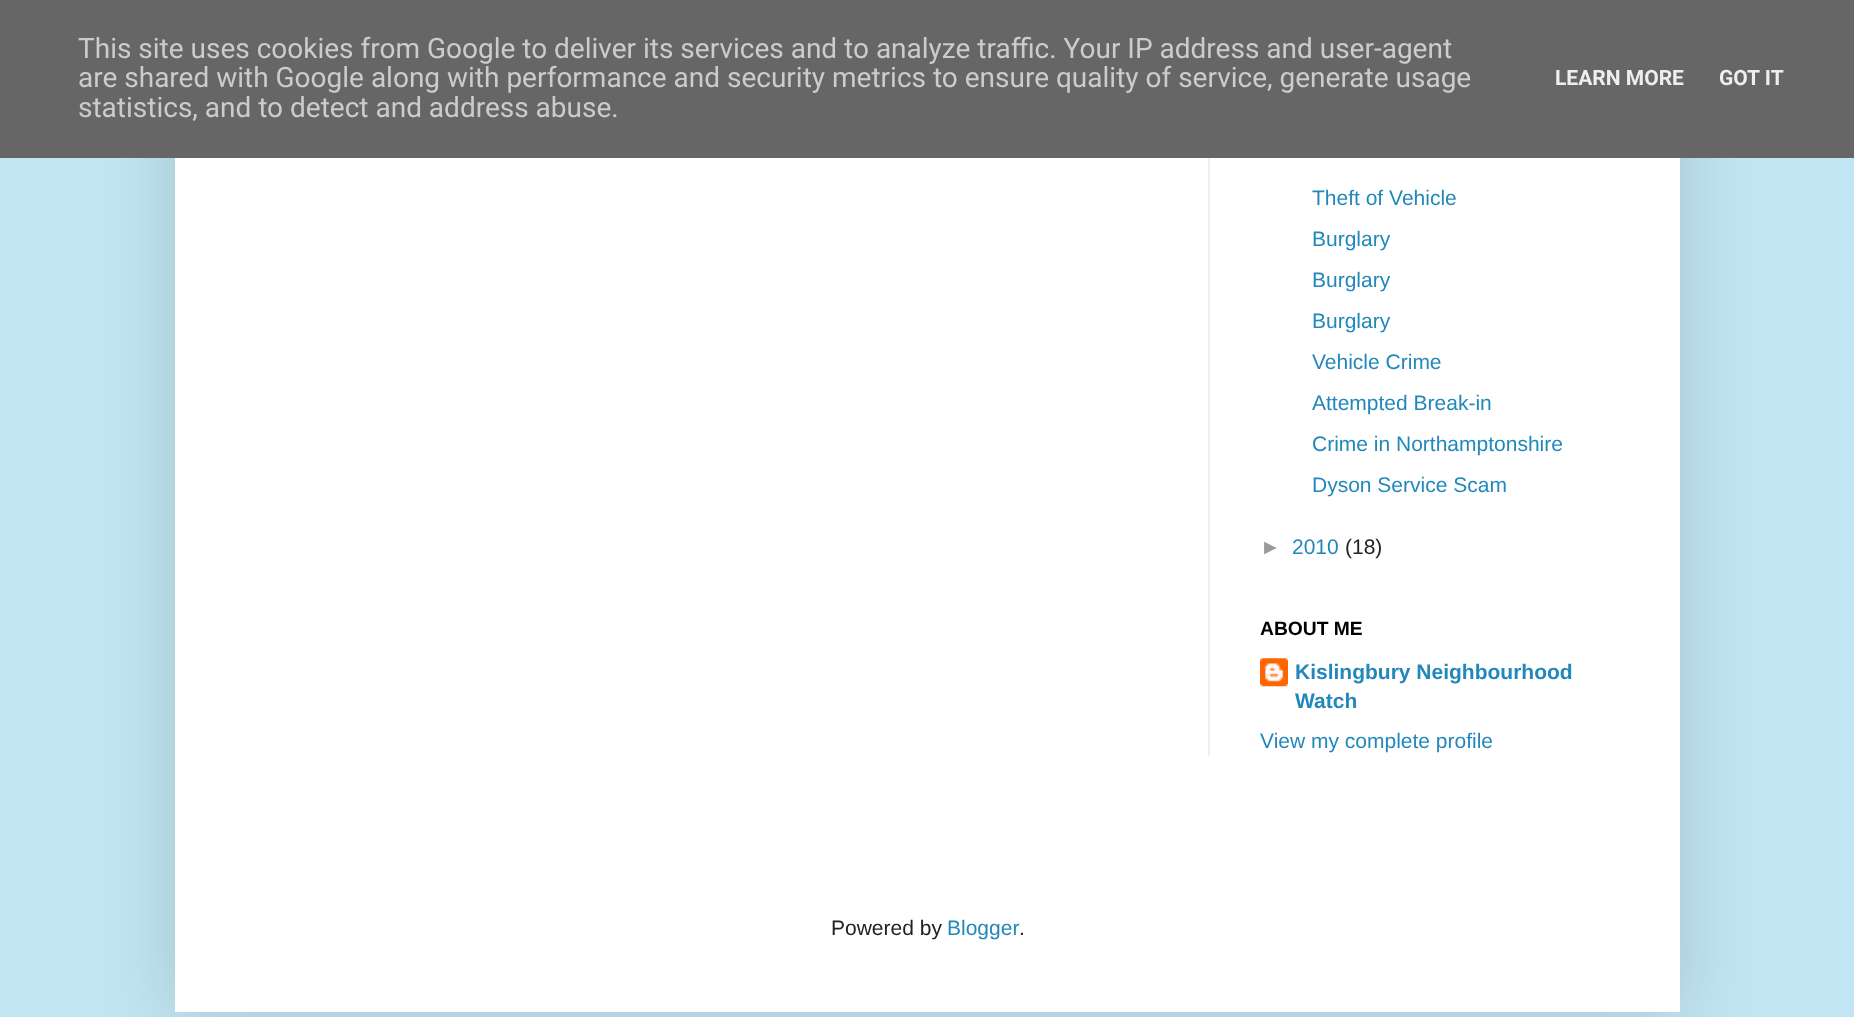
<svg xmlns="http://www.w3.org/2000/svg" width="1854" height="1017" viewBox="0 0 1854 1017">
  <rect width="100%" height="100%" fill="rgb(193,229,242)"/>
  <rect x="175" y="-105" width="1505" height="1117" fill="rgba(0,0,0,0.15)" filter="blur(35px)"/>
  <rect x="0" y="0" width="1854" height="158" fill="rgb(102,102,102)"/>
  <g font-family="Roboto" font-size="28" fill="rgb(204,204,204)">
    <text>
      <tspan x="78" y="58">This site uses cookies from Google to deliver its services and to analyze traffic. Your IP address and user-agent</tspan>
      <tspan x="78" y="87">are shared with Google along with performance and security metrics to ensure quality of service, generate usage</tspan>
      <tspan x="78" y="117">statistics, and to detect and address abuse.</tspan>
    </text>
  </g>
  <g font-family="Roboto" font-size="21" font-weight="bold" fill="rgb(238,238,238)">
    <text x="1555" y="85">LEARN MORE</text>
    <text x="1719" y="85">GOT IT</text>
  </g>
  <rect x="175" y="158" width="1505" height="854" fill="rgb(255,255,255)"/>
  <rect x="1208" y="158" width="2" height="598" fill="rgb(238,238,238)"/>
  <g font-family="Liberation Sans" font-size="21" fill="rgb(34,136,187)">
    <text>
      <tspan x="1312" y="205">Theft of Vehicle</tspan>
      <tspan x="1312" y="246">Burglary</tspan>
      <tspan x="1312" y="287">Burglary</tspan>
      <tspan x="1312" y="328">Burglary</tspan>
      <tspan x="1312" y="369">Vehicle Crime</tspan>
      <tspan x="1312" y="410">Attempted Break-in</tspan>
      <tspan x="1312" y="451">Crime in Northamptonshire</tspan>
      <tspan x="1312" y="492">Dyson Service Scam</tspan>
    </text>
  </g>
  <text x="1260" y="554" font-family="Liberation Sans" font-size="21" fill="rgb(153,153,153)">►</text>
  <text x="1292" y="554" font-family="Liberation Sans" font-size="21" fill="rgb(34,136,187)">2010</text>
  <text x="1345" y="554" font-family="Liberation Sans" font-size="21" fill="rgb(34,34,34)">(18)</text>
  <text x="1260" y="635" font-family="Liberation Sans" font-size="19.25" font-weight="bold" fill="rgb(0,0,0)">ABOUT ME</text>
  <image x="1260" y="658" width="28" height="29" href="pic1.png"/>
  <g font-family="Liberation Sans" font-size="21" font-weight="bold" fill="rgb(34,136,187)">
    <text>
      <tspan x="1295" y="679">Kislingbury Neighbourhood</tspan>
      <tspan x="1295" y="708">Watch</tspan>
    </text>
  </g>
  <text x="1260" y="748" font-family="Liberation Sans" font-size="21" fill="rgb(34,136,187)">View my complete profile</text>
  <text x="831" y="935" font-family="Liberation Sans" font-size="21" fill="rgb(34,34,34)">Powered by</text>
  <text x="947" y="935" font-family="Liberation Sans" font-size="21" fill="rgb(34,136,187)">Blogger</text>
  <text x="1019" y="935" font-family="Liberation Sans" font-size="21" fill="rgb(34,34,34)">.</text>
</svg>
